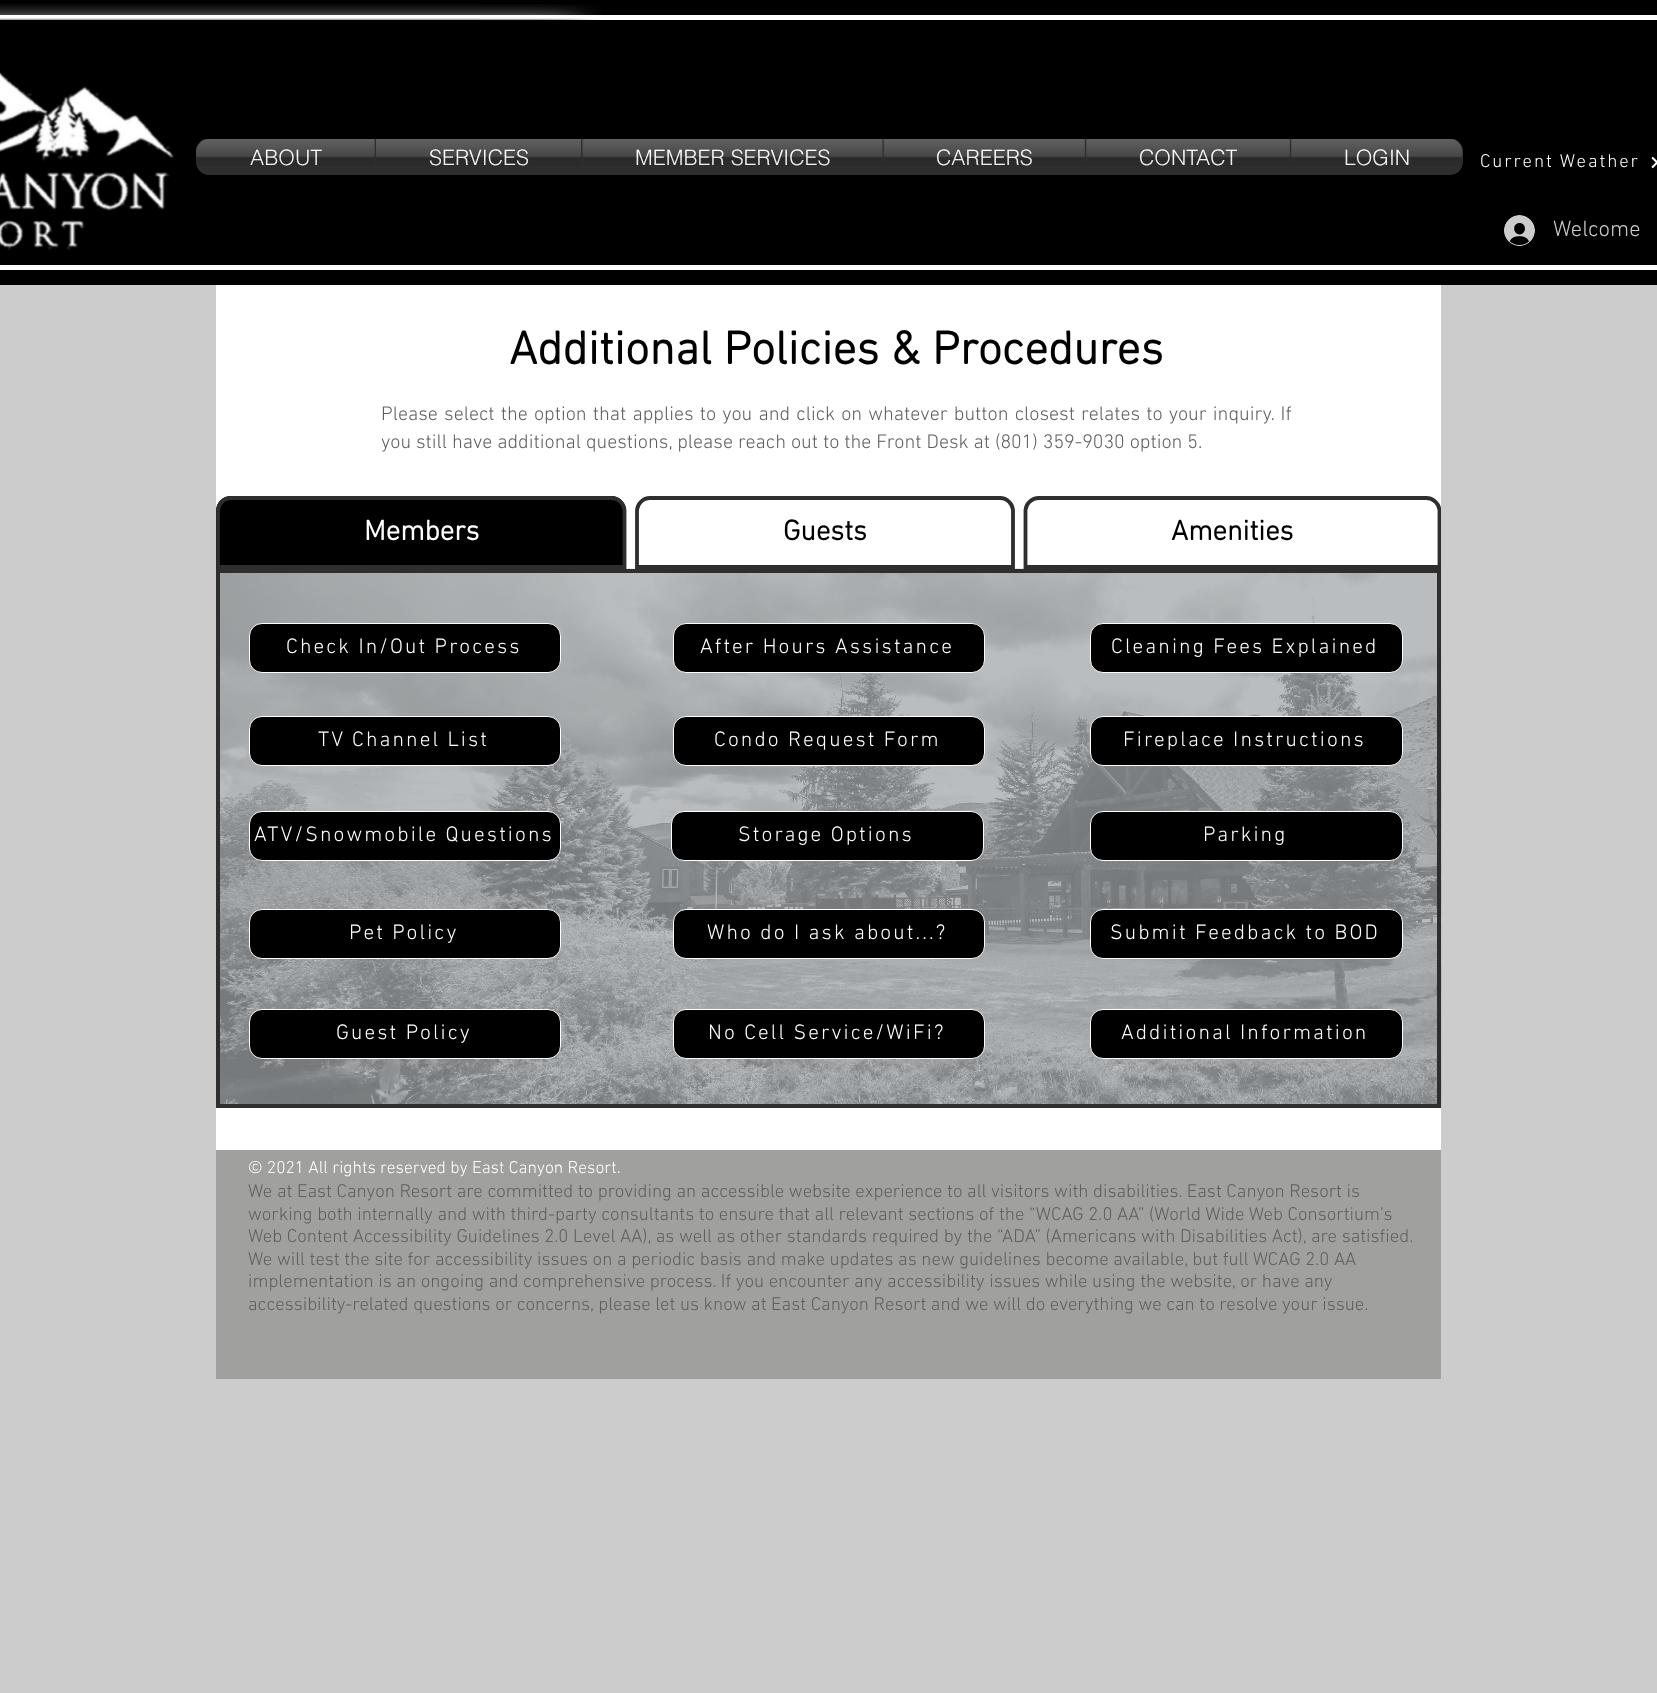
<svg xmlns="http://www.w3.org/2000/svg" width="1657" height="1693" viewBox="0 0 1657 1693">
  <defs>
    <clipPath id="clip1"><rect x="216" y="496" width="1225" height="73"/></clipPath>
  </defs>
  <rect width="100%" height="100%" fill="rgb(204,204,204)"/>
  <rect x="0" y="0" width="1657" height="285" fill="rgb(0,0,0)"/>
  <rect x="0" y="15" width="1657" height="5" fill="rgb(255,255,255)"/>
  <rect x="0" y="265" width="1657" height="5" fill="rgb(255,255,255)"/>
  <image x="0" y="3" width="480" height="17" href="pic1.png"/>
  <image x="480" y="4" width="121" height="16" href="pic2.png"/>
  <image x="0" y="72" width="174" height="178" href="pic3.png"/>
  <image x="196" y="139" width="1267" height="13" href="pic4.png"/>
  <path d="M209 139H375V175H209C202 175 196 169 196 162V152C196 145 202 139 209 139Z" fill="rgb(47,46,46)"/>
  <text x="250" y="165" font-family="helvetica" font-size="21.25" font-weight="300" fill="rgb(255,255,255)">ABOUT</text>
  <image x="196" y="139" width="179" height="27" href="pic5.png"/>
  <rect x="375" y="139" width="915" height="36" fill="rgb(47,46,46)"/>
  <text x="429" y="165" font-family="helvetica" font-size="21.25" font-weight="300" fill="rgb(255,255,255)">SERVICES</text>
  <image x="376" y="139" width="205" height="27" href="pic6.png"/>
  <text x="635" y="165" font-family="helvetica" font-size="21.25" font-weight="300" fill="rgb(255,255,255)">MEMBER SERVICES</text>
  <image x="582" y="139" width="301" height="27" href="pic7.png"/>
  <text x="936" y="165" font-family="helvetica" font-size="21.25" font-weight="300" fill="rgb(255,255,255)">CAREERS</text>
  <image x="883" y="139" width="202" height="27" href="pic8.png"/>
  <text x="1139" y="165" font-family="helvetica" font-size="21.25" font-weight="300" fill="rgb(255,255,255)">CONTACT</text>
  <image x="1086" y="139" width="204" height="27" href="pic9.png"/>
  <path d="M1290 139H1450C1457 139 1463 145 1463 152V162C1463 169 1457 175 1450 175H1290Z" fill="rgb(47,46,46)"/>
  <text x="1344" y="165" font-family="helvetica" font-size="21.25" font-weight="300" fill="rgb(255,255,255)">LOGIN</text>
  <image x="1291" y="139" width="172" height="27" href="pic10.png"/>
  <text x="1480" y="167" font-family="'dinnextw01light'" font-size="18.75" font-weight="300" letter-spacing="1.9" fill="rgb(255,255,255)">Current Weather</text>
  <image x="1651" y="156" width="6" height="13" href="pic11.png"/>
  <image x="1504" y="215" width="31" height="31" href="pic12.png"/>
  <text x="1553" y="236" font-family="'dinnextw01light'" font-size="22.5" font-weight="300" fill="rgb(204,204,204)">Welcome</text>
  <rect x="216" y="285" width="1225" height="865" fill="rgb(255,255,255)"/>
  <text x="509" y="364" font-family="'dinnextw01light'" font-size="47.5" font-weight="bold" fill="rgb(0,0,0)">Additional Policies &amp; Procedures</text>
  <g font-family="'dinnextw01light'" font-size="20" font-weight="300" fill="rgb(96,94,94)">
    <text>
      <tspan x="381" y="420" word-spacing="1.2">Please select the option that applies to you and click on whatever button closest relates to your inquiry. If</tspan>
      <tspan x="381" y="448">you still have additional questions, please reach out to the Front Desk at (801) 359-9030 option 5.</tspan>
    </text>
  </g>
  <image x="216" y="568" width="1226" height="540" href="pic13.png"/>
  <path d="M231 496H611C619.5 496 626 502.5 626 511V568C626 568.5 625.5 569 625 569H217C216.5 569 216 568.5 216 568V511C216 502.5 222.5 496 231 496Z" fill="rgb(0,0,0)"/>
  <path d="M231 498H611C618.5 498 624.5 504 624.5 511V567H218V511C218 504 224 498 231 498Z" fill="none" stroke="rgb(47,46,46)" stroke-width="3.8"/>
  <text x="364" y="540" font-family="'dinnextw01light'" font-size="28.75" font-weight="bold" fill="rgb(255,255,255)">Members</text>
  <path d="M650 496H1000C1008.5 496 1015 502.5 1015 511V568C1015 568.5 1014.5 569 1014 569H636C635.5 569 635 568.5 635 568V511C635 502.5 641.5 496 650 496Z" fill="rgb(255,255,255)"/>
  <path d="M650 498H1000C1007 498 1013 504 1013 511V567H637V511C637 504 643 498 650 498Z" fill="none" stroke="rgb(47,46,46)" stroke-width="3.8"/>
  <text x="783" y="540" font-family="'dinnextw01light'" font-size="28.75" font-weight="bold" fill="rgb(0,0,0)">Guests</text>
  <path d="M1039 496H1426C1434.5 496 1441 502.5 1441 511V568C1441 568.5 1440.5 569 1440 569H1025C1024.5 569 1024 568.5 1024 568V511C1024 502.5 1030.5 496 1039 496Z" fill="rgb(255,255,255)"/>
  <g clip-path="url(#clip1)">
    <path d="M1039 498H1426C1433.5 498 1439.5 504 1439.5 511V567H1025.5V511C1025.5 504 1031.5 498 1039 498Z" fill="none" stroke="rgb(47,46,46)" stroke-width="3.8"/>
  </g>
  <text x="1171" y="540" font-family="'dinnextw01light'" font-size="28.75" font-weight="bold" fill="rgb(0,0,0)">Amenities</text>
  <rect x="218" y="571" width="1221" height="535" fill="none" stroke="rgb(47,46,46)" stroke-width="4"/>
  <rect x="249.5" y="623.5" width="311" height="49" rx="12.5" fill="rgb(0,0,0)" stroke="rgb(255,255,255)"/>
  <text x="286" y="653" font-family="'dinnextw01light'" font-size="21.25" font-weight="300" letter-spacing="2.1" fill="rgb(255,255,255)">Check In/Out Process</text>
  <rect x="673.5" y="623.5" width="311" height="49" rx="12.5" fill="rgb(0,0,0)" stroke="rgb(255,255,255)"/>
  <text x="700" y="653" font-family="'dinnextw01light'" font-size="21.25" font-weight="300" letter-spacing="2.1" fill="rgb(255,255,255)">After Hours Assistance</text>
  <rect x="1090.5" y="623.5" width="312" height="49" rx="12.5" fill="rgb(0,0,0)" stroke="rgb(255,255,255)"/>
  <text x="1111" y="653" font-family="'dinnextw01light'" font-size="21.25" font-weight="300" letter-spacing="2.1" fill="rgb(255,255,255)">Cleaning Fees Explained</text>
  <rect x="249.5" y="716.5" width="311" height="49" rx="12.5" fill="rgb(0,0,0)" stroke="rgb(255,255,255)"/>
  <text x="318" y="746" font-family="'dinnextw01light'" font-size="21.25" font-weight="300" letter-spacing="2.1" fill="rgb(255,255,255)">TV Channel List</text>
  <rect x="673.5" y="716.5" width="311" height="49" rx="12.5" fill="rgb(0,0,0)" stroke="rgb(255,255,255)"/>
  <text x="714" y="746" font-family="'dinnextw01light'" font-size="21.25" font-weight="300" letter-spacing="2.1" fill="rgb(255,255,255)">Condo Request Form</text>
  <rect x="1090.5" y="716.5" width="312" height="49" rx="12.5" fill="rgb(0,0,0)" stroke="rgb(255,255,255)"/>
  <text x="1123" y="746" font-family="'dinnextw01light'" font-size="21.25" font-weight="300" letter-spacing="2.1" fill="rgb(255,255,255)">Fireplace Instructions</text>
  <rect x="249.5" y="811.5" width="311" height="49" rx="12.5" fill="rgb(0,0,0)" stroke="rgb(255,255,255)"/>
  <text x="254" y="841" font-family="'dinnextw01light'" font-size="21.25" font-weight="300" letter-spacing="2.1" fill="rgb(255,255,255)">ATV/Snowmobile Questions</text>
  <rect x="671.5" y="811.5" width="312" height="49" rx="12.5" fill="rgb(0,0,0)" stroke="rgb(255,255,255)"/>
  <text x="738" y="841" font-family="'dinnextw01light'" font-size="21.25" font-weight="300" letter-spacing="2.1" fill="rgb(255,255,255)">Storage Options</text>
  <rect x="1090.5" y="811.5" width="312" height="49" rx="12.5" fill="rgb(0,0,0)" stroke="rgb(255,255,255)"/>
  <text x="1203" y="841" font-family="'dinnextw01light'" font-size="21.25" font-weight="300" letter-spacing="2.1" fill="rgb(255,255,255)">Parking</text>
  <rect x="249.5" y="909.5" width="311" height="49" rx="12.5" fill="rgb(0,0,0)" stroke="rgb(255,255,255)"/>
  <text x="349" y="939" font-family="'dinnextw01light'" font-size="21.25" font-weight="300" letter-spacing="2.1" fill="rgb(255,255,255)">Pet Policy</text>
  <rect x="673.5" y="909.5" width="311" height="49" rx="12.5" fill="rgb(0,0,0)" stroke="rgb(255,255,255)"/>
  <text x="707" y="939" font-family="'dinnextw01light'" font-size="21.25" font-weight="300" letter-spacing="2.1" fill="rgb(255,255,255)">Who do I ask about...?</text>
  <rect x="1090.5" y="909.5" width="312" height="49" rx="12.5" fill="rgb(0,0,0)" stroke="rgb(255,255,255)"/>
  <text x="1110" y="939" font-family="'dinnextw01light'" font-size="21.25" font-weight="300" letter-spacing="2.1" fill="rgb(255,255,255)">Submit Feedback to BOD</text>
  <rect x="249.5" y="1009.5" width="311" height="49" rx="12.5" fill="rgb(0,0,0)" stroke="rgb(255,255,255)"/>
  <text x="336" y="1039" font-family="'dinnextw01light'" font-size="21.25" font-weight="300" letter-spacing="2.1" fill="rgb(255,255,255)">Guest Policy</text>
  <rect x="673.5" y="1009.5" width="311" height="49" rx="12.5" fill="rgb(0,0,0)" stroke="rgb(255,255,255)"/>
  <text x="708" y="1039" font-family="'dinnextw01light'" font-size="21.25" font-weight="300" letter-spacing="2.1" fill="rgb(255,255,255)">No Cell Service/WiFi?</text>
  <rect x="1090.5" y="1009.5" width="312" height="49" rx="12.5" fill="rgb(0,0,0)" stroke="rgb(255,255,255)"/>
  <text x="1121" y="1039" font-family="'dinnextw01light'" font-size="21.25" font-weight="300" letter-spacing="2.1" fill="rgb(255,255,255)">Additional Information</text>
  <rect x="216" y="1150" width="1225" height="229" fill="rgb(160,160,159)"/>
  <text x="248" y="1173" font-family="'dinnextw01light'" font-size="17.5" font-weight="300" fill="rgb(255,255,255)">© 2021 All rights reserved by East Canyon Resort.</text>
  <g font-family="'dinnextw01light'" font-size="18.75" font-weight="300" fill="rgb(96,94,94)">
    <text>
      <tspan x="248" y="1197">We at East Canyon Resort are committed to providing an accessible website experience to all visitors with disabilities. East Canyon Resort is</tspan>
      <tspan x="248" y="1220">working both internally and with third-party consultants to ensure that all relevant sections of the “WCAG 2.0 AA” (World Wide Web Consortium's</tspan>
      <tspan x="248" y="1242">Web Content Accessibility Guidelines 2.0 Level AA), as well as other standards required by the “ADA” (Americans with Disabilities Act), are satisfied.</tspan>
      <tspan x="248" y="1265">We will test the site for accessibility issues on a periodic basis and make updates as new guidelines become available, but full WCAG 2.0 AA</tspan>
      <tspan x="248" y="1287">implementation is an ongoing and comprehensive process. If you encounter any accessibility issues while using the website, or have any</tspan>
      <tspan x="248" y="1310">accessibility-related questions or concerns, please let us know at East Canyon Resort and we will do everything we can to resolve your issue.</tspan>
    </text>
  </g>
</svg>
